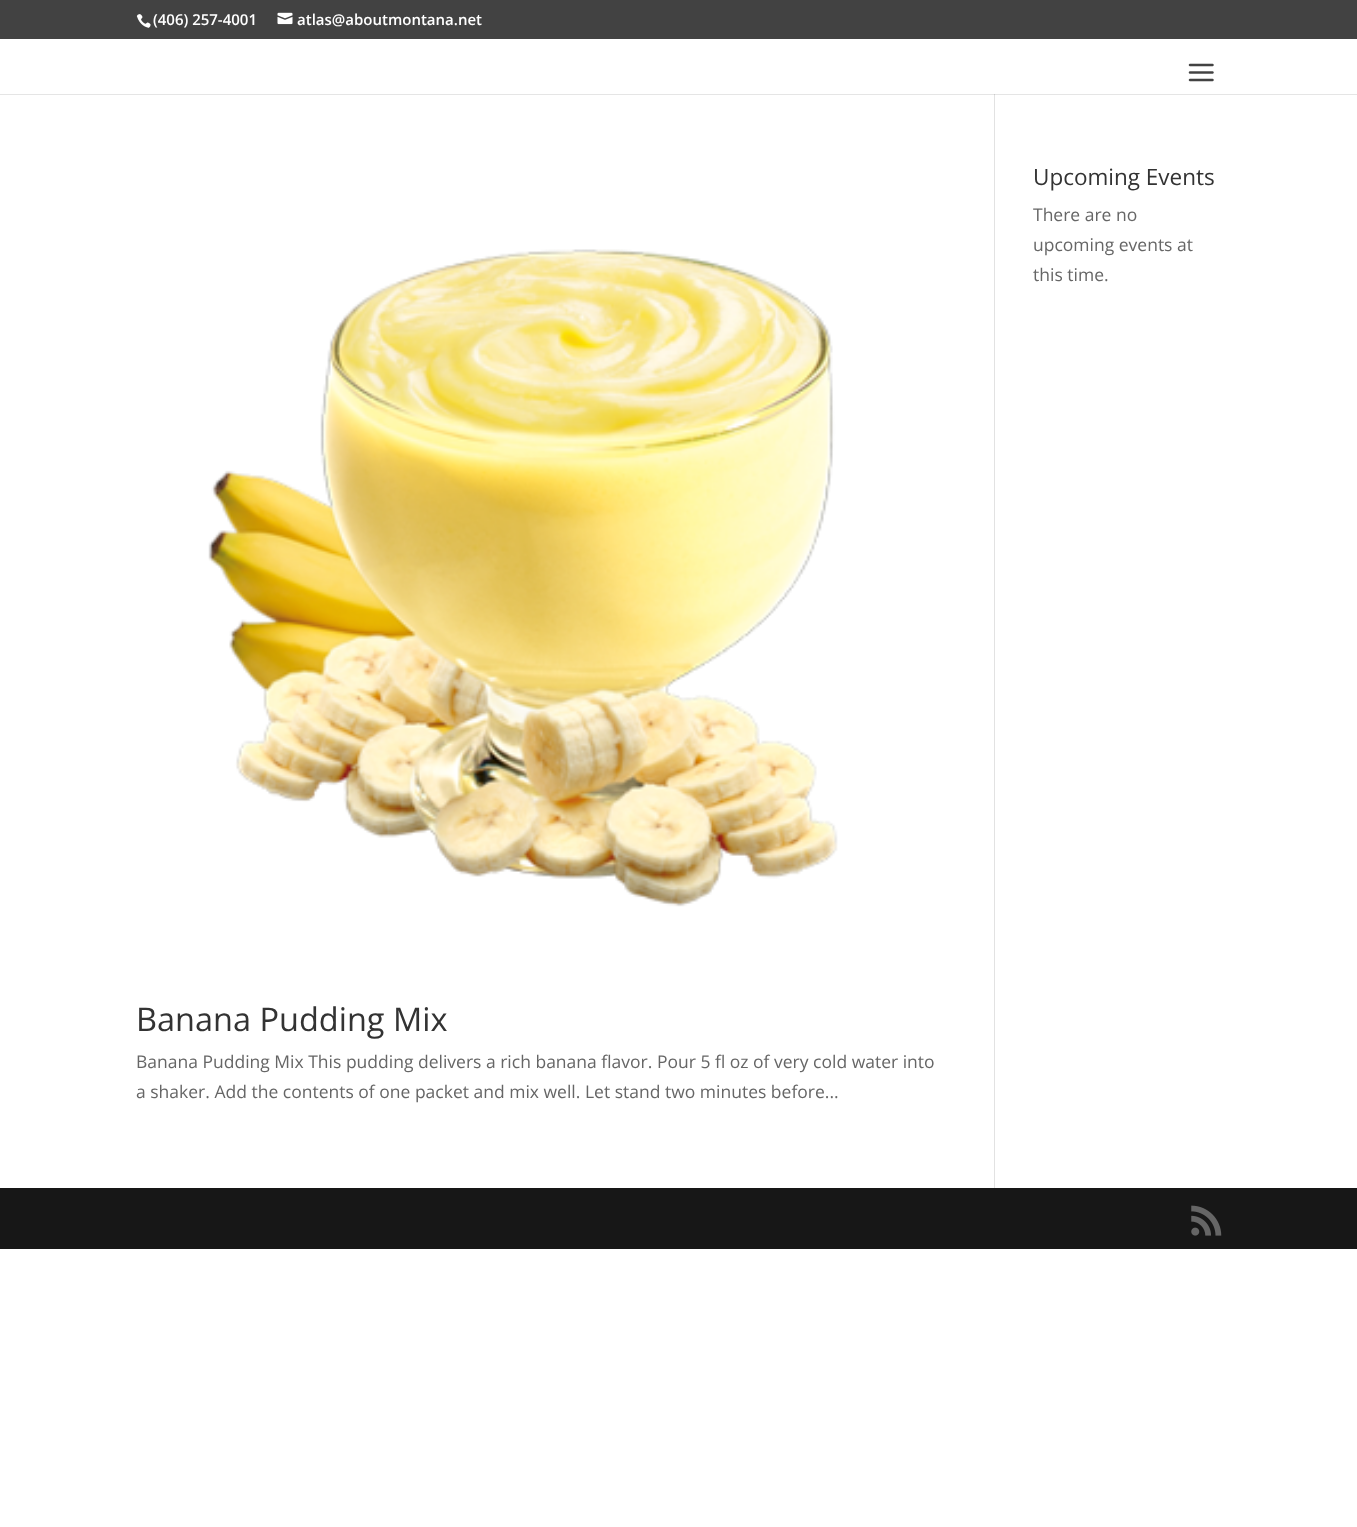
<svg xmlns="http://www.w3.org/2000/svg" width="1357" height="1527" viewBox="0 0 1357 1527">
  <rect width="100%" height="100%" fill="rgb(255,255,255)"/>
  <rect x="0" y="0" width="1357" height="39" fill="rgb(66,66,66)"/>
  <image x="136" y="14" width="15" height="14" href="pic1.png"/>
  <text x="153" y="25" font-family="Open Sans" font-size="15" font-weight="600" fill="rgb(255,255,255)">(406) 257-4001</text>
  <image x="277" y="12" width="16" height="13" href="pic2.png"/>
  <text x="297" y="25" font-family="Open Sans" font-size="15" font-weight="600" fill="rgb(255,255,255)">atlas@aboutmontana.net</text>
  <rect x="994" y="93" width="1" height="1095" fill="rgb(226,226,226)"/>
  <path d="M0 94V95H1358V40V94Z" fill="rgba(0,0,0,0.1)"/>
  <rect x="994" y="93" width="1" height="1" fill="rgb(255,255,255)"/>
  <image x="1188" y="63" width="26" height="19" href="pic3.png"/>
  <text x="1033" y="185" font-family="Open Sans" font-size="22.5" fill="rgb(51,51,51)">Upcoming Events</text>
  <g font-family="Open Sans" font-size="17.5" fill="rgb(102,102,102)">
    <text>
      <tspan x="1033" y="221">There are no</tspan>
      <tspan x="1033" y="251">upcoming events at</tspan>
      <tspan x="1033" y="281">this time.</tspan>
    </text>
  </g>
  <image x="208" y="249" width="630" height="658" href="pic4.png"/>
  <text x="136" y="1031" font-family="Open Sans" font-size="32.5" fill="rgb(51,51,51)">Banana Pudding Mix</text>
  <g font-family="Open Sans" font-size="17.5" fill="rgb(102,102,102)">
    <text>
      <tspan x="136" y="1068">Banana Pudding Mix This pudding delivers a rich banana flavor. Pour 5 fl oz of very cold water into</tspan>
      <tspan x="136" y="1098">a shaker. Add the contents of one packet and mix well. Let stand two minutes before...</tspan>
    </text>
  </g>
  <rect x="0" y="1188" width="1357" height="61" fill="rgb(23,23,23)"/>
  <image x="1191" y="1205" width="31" height="31" href="pic5.png"/>
</svg>
